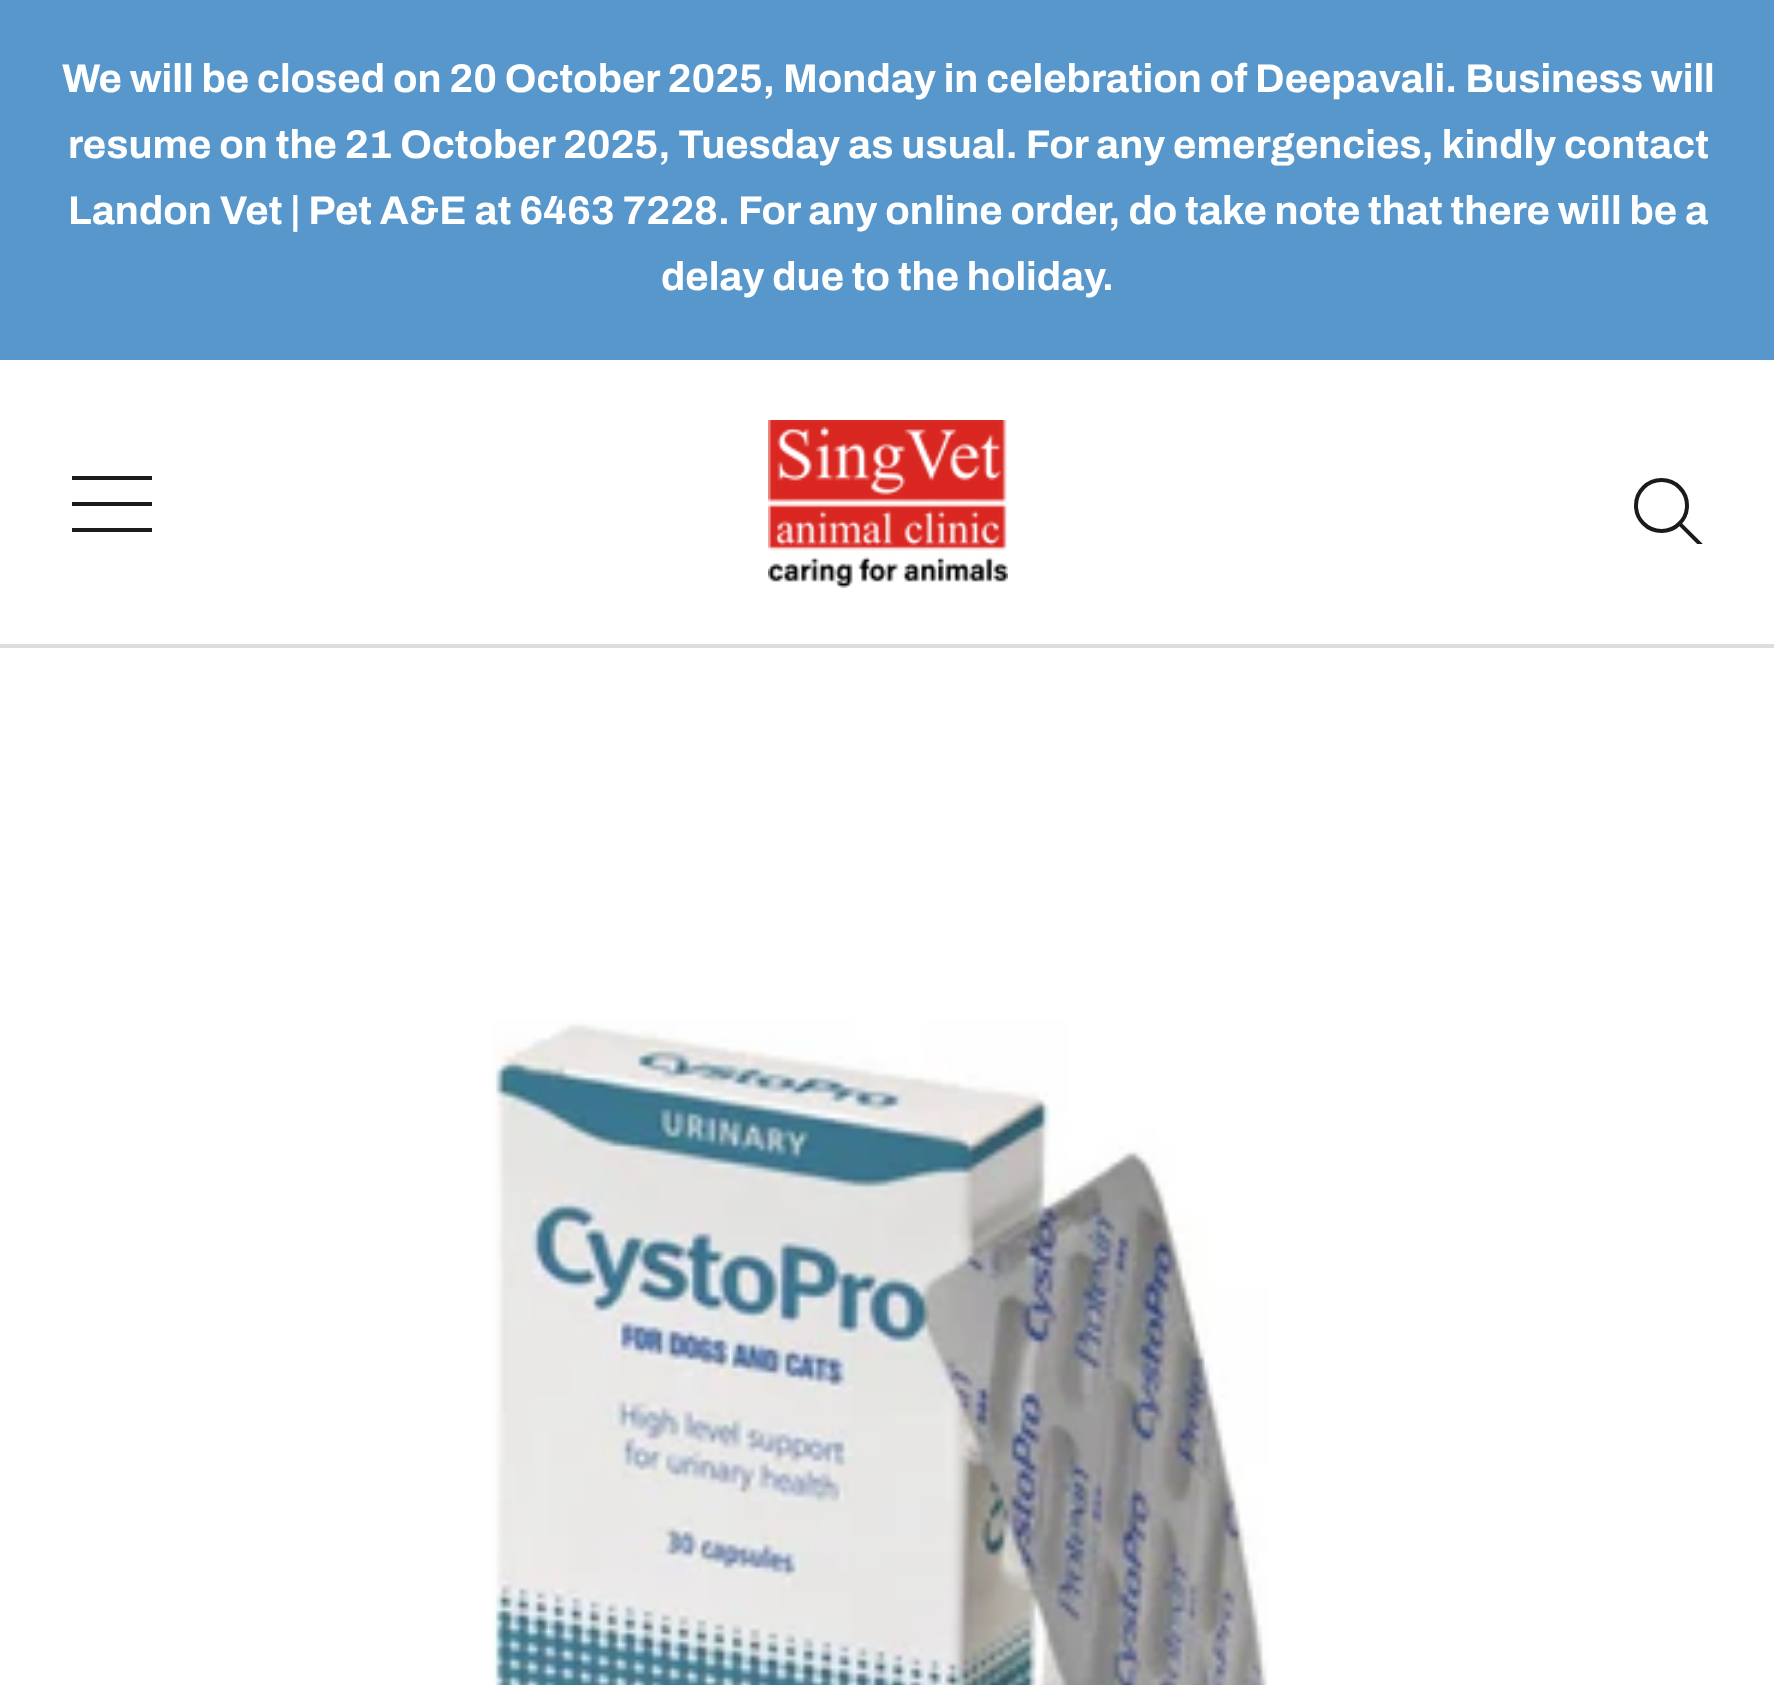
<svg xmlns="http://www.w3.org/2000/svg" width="1774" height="1685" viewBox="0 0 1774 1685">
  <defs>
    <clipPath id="clip1"><rect x="1632" y="476" width="72" height="68"/></clipPath>
  </defs>
  <rect width="100%" height="100%" fill="rgb(255,255,255)"/>
  <rect x="0" y="0" width="1774" height="360" fill="rgb(87,151,204)"/>
  <g font-family="Archivo" font-size="40" font-weight="bold" fill="rgb(255,255,255)">
    <text x="62" y="92">We will be closed on 20 October 2025, Monday in celebration of Deepavali. Business will</text>
    <text>
      <tspan x="68" y="158">resume on the 21 October 2025, Tuesday as usual. For any emergencies, kindly contact</tspan>
      <tspan x="68" y="224">Landon Vet | Pet A&amp;E at 6463 7228. For any online order, do take note that there will be a</tspan>
    </text>
    <text x="661" y="290">delay due to the holiday.</text>
  </g>
  <rect x="0" y="644" width="1774" height="4" fill="rgb(221,221,221)"/>
  <path d="M72 532V528H152V532ZM72 502H152V506H72ZM72 476H152V480H72Z" fill="rgb(28,27,27)"/>
  <image x="768" y="420" width="240" height="168" href="pic1.png"/>
  <g clip-path="url(#clip1)">
    <path d="M1700 544L1679.5 523.5" fill="none" stroke="rgb(28,27,27)" stroke-width="4" stroke-linecap="square"/>
  </g>
  <circle cx="1661.5" cy="505.5" r="25.5" fill="none" stroke="rgb(28,27,27)" stroke-width="4"/>
  <image x="492" y="1020" width="776" height="665" href="pic2.png"/>
</svg>
